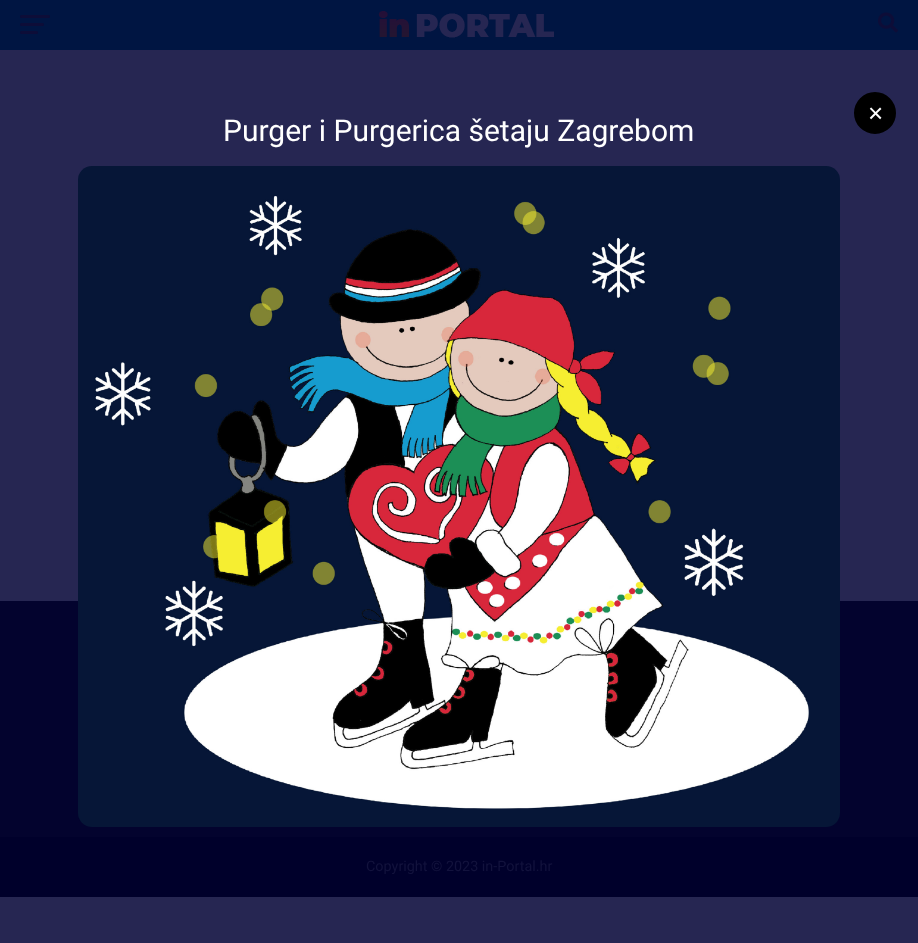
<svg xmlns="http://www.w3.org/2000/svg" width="918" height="943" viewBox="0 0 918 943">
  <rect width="100%" height="100%" fill="rgb(38,38,82)"/>
  <circle cx="875" cy="113" r="20" fill="rgb(0,0,0)" stroke="rgb(0,0,0)" stroke-width="2"/>
  <text x="868" y="122" font-family="Liberation Sans" font-size="26" fill="rgb(255,255,255)">×</text>
  <text x="223" y="141" font-family="Roboto" font-size="30" fill="rgb(255,255,255)">Purger i Purgerica šetaju Zagrebom</text>
  <rect x="0" y="601" width="918" height="236" fill="rgb(3,3,46)"/>
  <image x="78" y="166" width="762" height="661" href="pic1.png"/>
  <rect x="0" y="0" width="918" height="50" fill="rgb(0,21,66)"/>
  <rect x="20" y="15" width="30" height="3" rx="1.5" fill="rgb(13,13,56)"/>
  <rect x="20" y="23" width="24" height="3" rx="1.5" fill="rgb(13,13,56)"/>
  <rect x="20" y="31" width="18" height="3" rx="1.5" fill="rgb(13,13,56)"/>
  <image x="378" y="11" width="176" height="27" href="pic2.png"/>
  <image x="878" y="12" width="20" height="21" href="pic3.png"/>
  <rect x="0" y="837" width="918" height="60" fill="rgb(0,0,43)"/>
  <text x="366" y="871" font-family="Roboto" font-size="14.4" fill="rgb(18,18,61)">Copyright © 2023 in-Portal.hr</text>
</svg>
